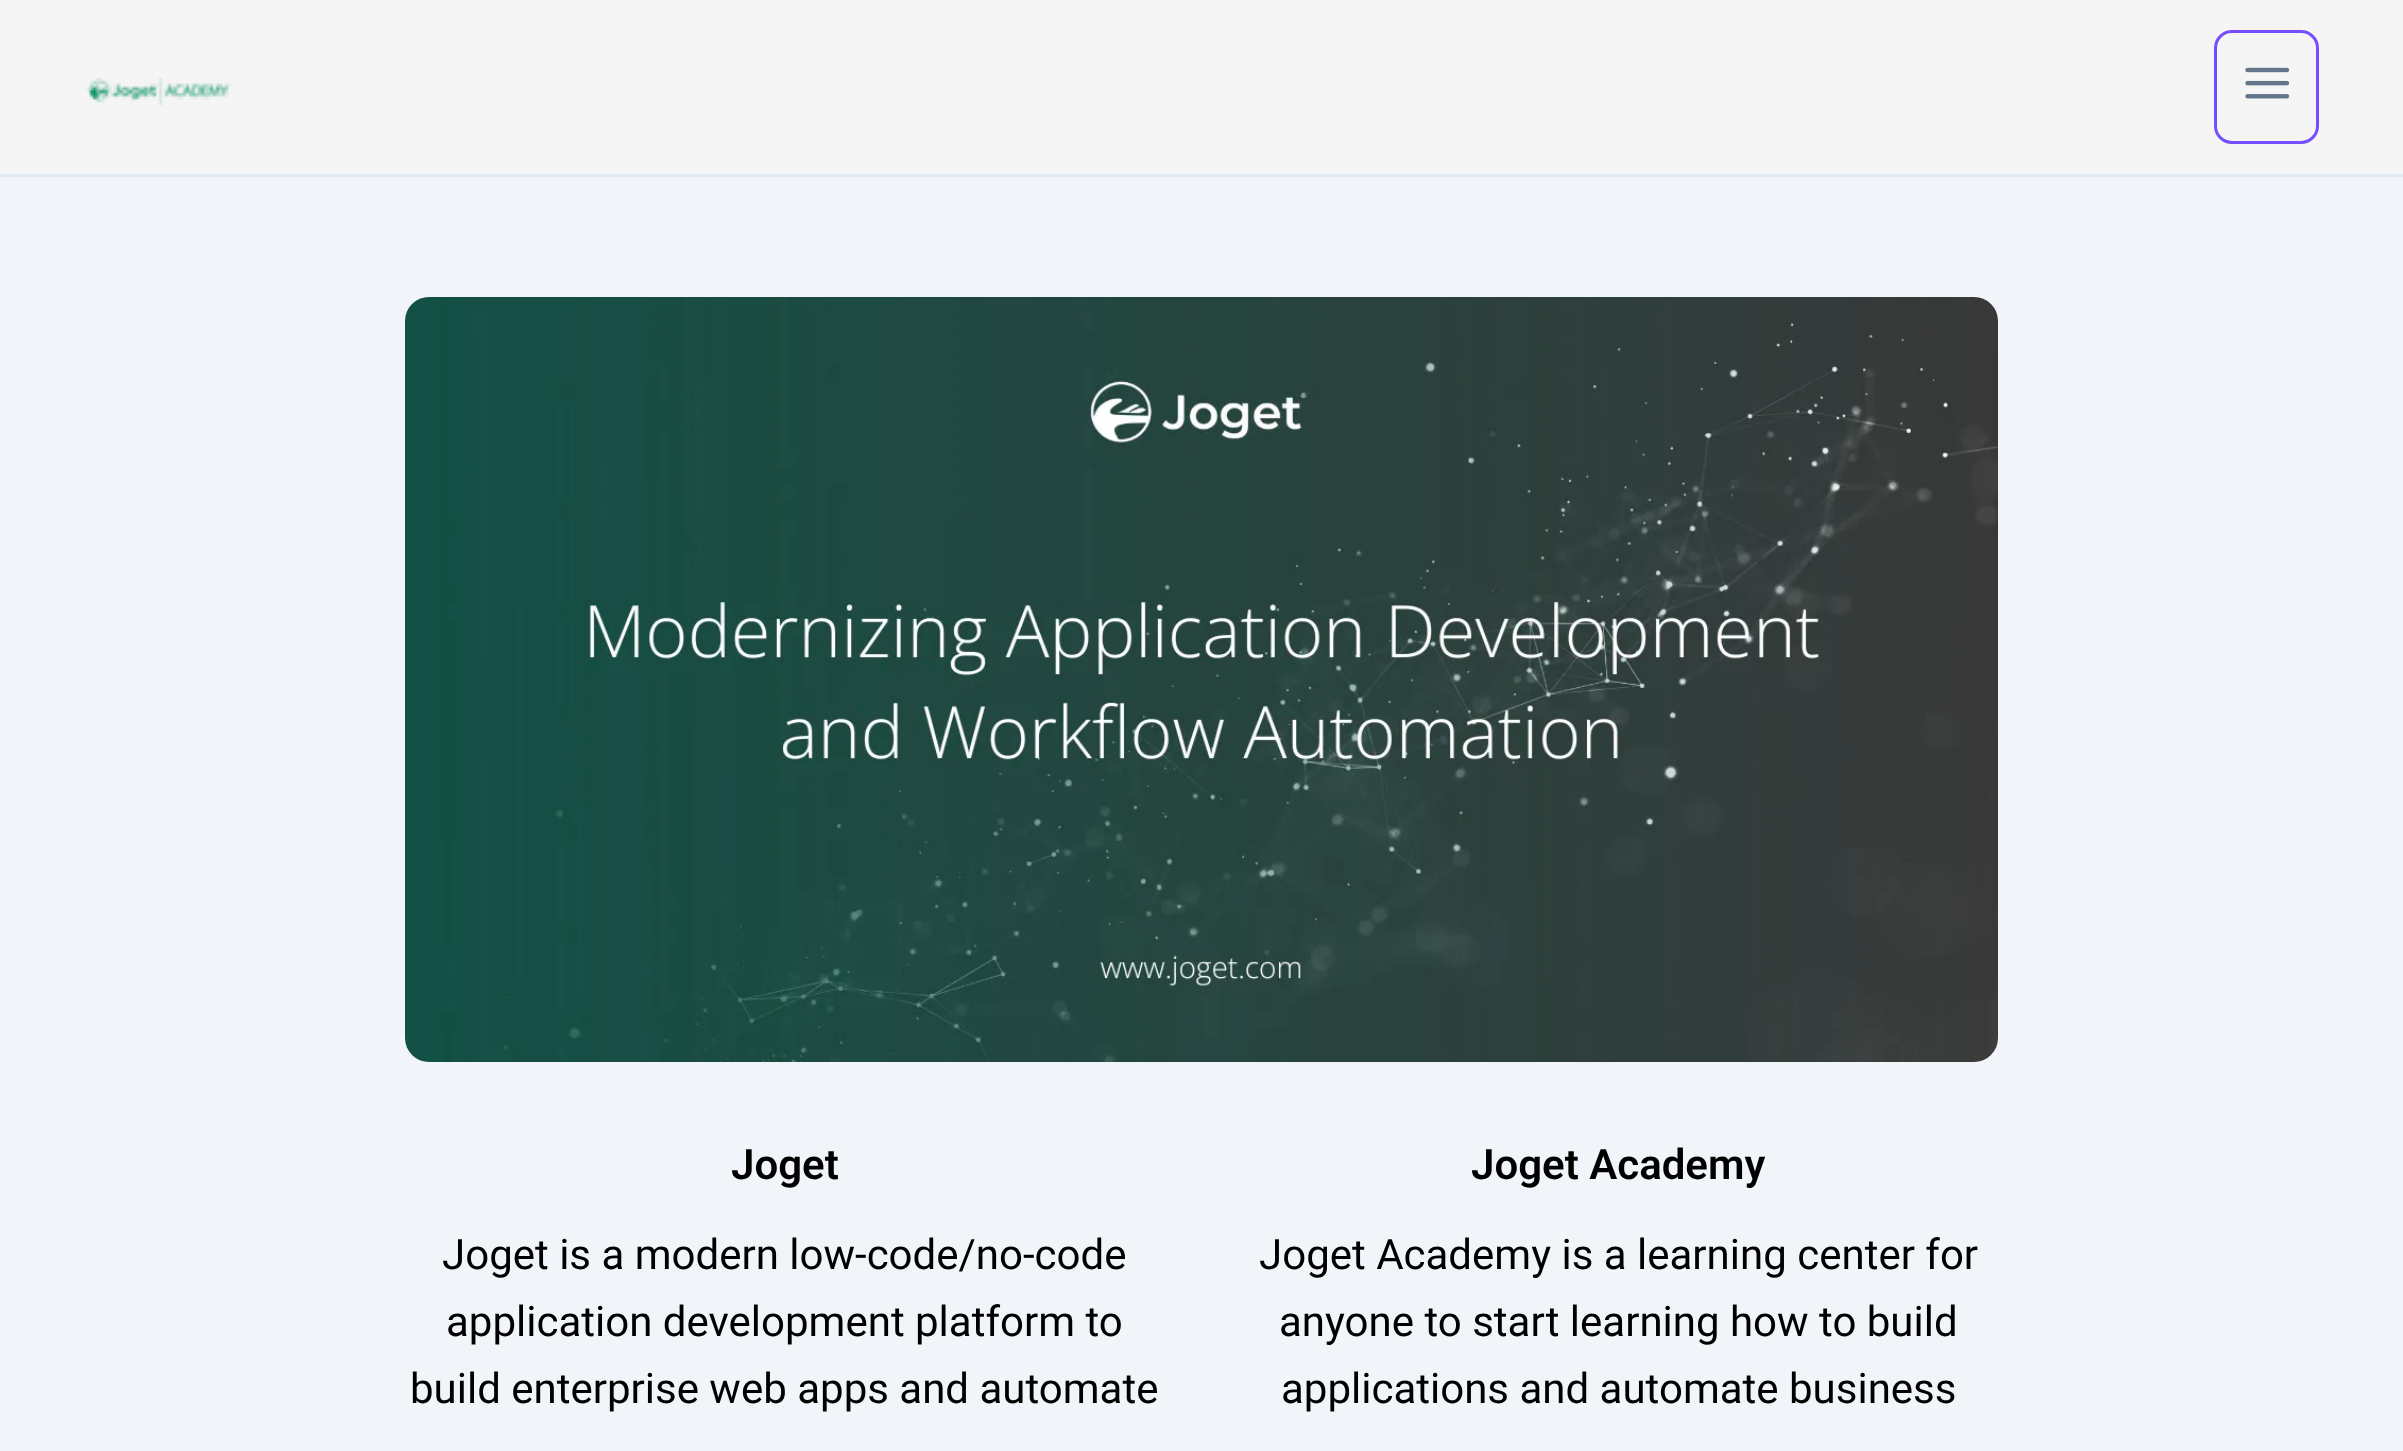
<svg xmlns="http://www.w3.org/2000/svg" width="2403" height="1451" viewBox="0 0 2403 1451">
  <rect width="100%" height="100%" fill="rgb(241,245,249)"/>
  <rect x="0" y="0" width="2403" height="174" fill="rgb(245,245,245)"/>
  <rect x="0" y="174" width="2403" height="3" fill="rgb(226,232,240)"/>
  <image x="86" y="78" width="146" height="27" href="pic1.png"/>
  <rect x="2215.5" y="31.5" width="102" height="111" rx="16.5" fill="none" stroke="rgb(117,79,254)" stroke-width="3"/>
  <image x="2245" y="67" width="45" height="32" href="pic2.png"/>
  <image x="405" y="297" width="1593" height="765" href="pic3.png"/>
  <text x="731" y="1179" font-family="Roboto" font-size="42" font-weight="600" fill="rgb(0,0,0)">Joget</text>
  <g font-family="Roboto" font-size="42" fill="rgb(0,0,0)">
    <text x="442" y="1269">Joget is a modern low-code/no-code</text>
    <text x="446" y="1336">application development platform to</text>
    <text x="410" y="1403">build enterprise web apps and automate</text>
  </g>
  <text x="1471" y="1179" font-family="Roboto" font-size="42" font-weight="600" fill="rgb(0,0,0)">Joget Academy</text>
  <g font-family="Roboto" font-size="42" fill="rgb(0,0,0)">
    <text x="1259" y="1269">Joget Academy is a learning center for</text>
    <text x="1279" y="1336">anyone to start learning how to build</text>
    <text x="1281" y="1403">applications and automate business</text>
  </g>
</svg>
